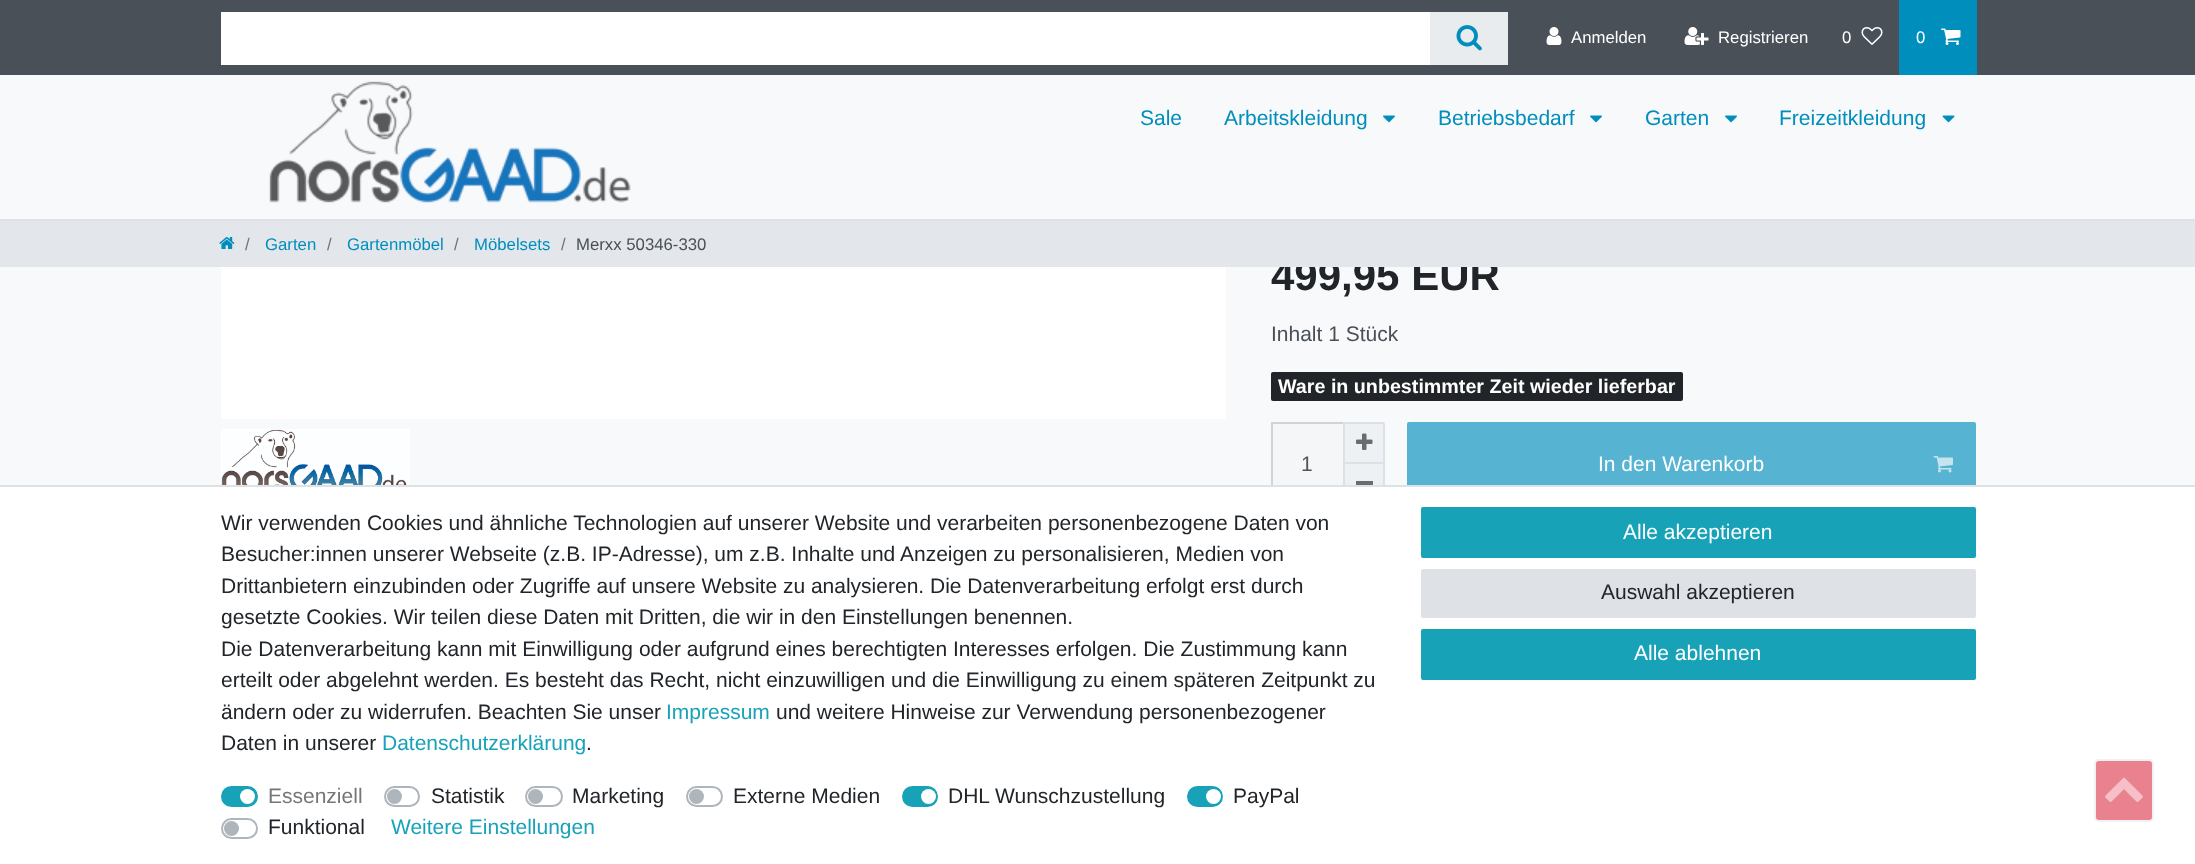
<svg xmlns="http://www.w3.org/2000/svg" width="2195" height="864" viewBox="0 0 2195 864">
  <rect width="100%" height="100%" fill="rgb(248,249,250)"/>
  <rect x="0" y="0" width="2195" height="75" fill="rgb(73,80,87)"/>
  <rect x="221" y="12" width="1209" height="53" fill="rgb(255,255,255)"/>
  <rect x="1430" y="12" width="78" height="53" fill="rgb(233,236,239)"/>
  <image x="1456" y="25" width="26" height="26" href="pic1.png"/>
  <image x="1546" y="27" width="16" height="18" href="pic2.png"/>
  <text x="1571" y="43" font-family="Liberation Sans" font-size="16.75" fill="rgb(255,255,255)">Anmelden</text>
  <image x="1684" y="27" width="25" height="18" href="pic3.png"/>
  <g font-family="Liberation Sans" font-size="16.75" fill="rgb(255,255,255)">
    <text x="1718" y="43">Registrieren</text>
    <text x="1842" y="43">0</text>
  </g>
  <image x="1861" y="27" width="22" height="18" href="pic4.png"/>
  <rect x="1899" y="0" width="78" height="75" fill="rgb(0,142,189)"/>
  <text x="1916" y="43" font-family="Liberation Sans" font-size="16.75" fill="rgb(255,255,255)">0</text>
  <image x="1941" y="28" width="20" height="17" href="pic5.png"/>
  <rect x="0" y="219" width="2195" height="2" fill="rgb(222,226,230)"/>
  <image x="269" y="81" width="362" height="122" href="pic6.png"/>
  <g font-family="Liberation Sans" font-size="21" fill="rgb(0,142,189)">
    <text x="1140" y="125">Sale</text>
    <text x="1224" y="125">Arbeitskleidung</text>
  </g>
  <image x="1383" y="115" width="12" height="8" href="pic7.png"/>
  <text x="1438" y="125" font-family="Liberation Sans" font-size="21" fill="rgb(0,142,189)">Betriebsbedarf</text>
  <image x="1590" y="115" width="12" height="8" href="pic7.png"/>
  <text x="1645" y="125" font-family="Liberation Sans" font-size="21" fill="rgb(0,142,189)">Garten</text>
  <image x="1725" y="115" width="12" height="8" href="pic7.png"/>
  <text x="1779" y="125" font-family="Liberation Sans" font-size="21" fill="rgb(0,142,189)">Freizeitkleidung</text>
  <image x="1942" y="115" width="13" height="8" href="pic8.png"/>
  <text x="1271" y="290" font-family="Liberation Sans" font-size="42" font-weight="bold" fill="rgb(33,37,41)">499,95 EUR</text>
  <rect x="0" y="221" width="2195" height="46" fill="rgb(227,231,235)"/>
  <image x="219" y="237" width="16" height="12" href="pic9.png"/>
  <text x="245" y="250" font-family="Liberation Sans" font-size="16.75" fill="rgb(108,117,125)">/</text>
  <text x="265" y="250" font-family="Liberation Sans" font-size="16.75" fill="rgb(0,142,189)">Garten</text>
  <text x="327" y="250" font-family="Liberation Sans" font-size="16.75" fill="rgb(108,117,125)">/</text>
  <text x="347" y="250" font-family="Liberation Sans" font-size="16.75" fill="rgb(0,142,189)">Gartenmöbel</text>
  <text x="454" y="250" font-family="Liberation Sans" font-size="16.75" fill="rgb(108,117,125)">/</text>
  <text x="474" y="250" font-family="Liberation Sans" font-size="16.75" fill="rgb(0,142,189)">Möbelsets</text>
  <text x="561" y="250" font-family="Liberation Sans" font-size="16.75" fill="rgb(108,117,125)">/</text>
  <text x="576" y="250" font-family="Liberation Sans" font-size="16.75" fill="rgb(73,80,87)">Merxx 50346-330</text>
  <rect x="221" y="267" width="1005" height="152" fill="rgb(255,255,255)"/>
  <rect x="221" y="429" width="189" height="56" fill="rgb(255,255,255)"/>
  <image x="221" y="429" width="188" height="56" href="pic10.png"/>
  <text x="1271" y="341" font-family="Liberation Sans" font-size="21" fill="rgb(73,80,87)">Inhalt 1 Stück</text>
  <rect x="1271" y="372" width="412" height="29" rx="2" fill="rgb(33,37,41)"/>
  <text x="1278" y="393" font-family="Liberation Sans" font-size="19.7" font-weight="bold" fill="rgb(255,255,255)">Ware in unbestimmter Zeit wieder lieferbar</text>
  <rect x="1273" y="424" width="70" height="61" fill="rgb(245,246,247)"/>
  <rect x="1271" y="422" width="72" height="2" fill="rgb(206,212,218)"/>
  <rect x="1271" y="422" width="2" height="63" fill="rgb(206,212,218)"/>
  <text x="1301" y="471" font-family="Liberation Sans" font-size="21" fill="rgb(84,84,84)">1</text>
  <path d="M1344 423H1383C1383.5 423 1384 423.5 1384 424V463H1344Z" fill="rgb(238,241,243)" stroke="rgb(221,225,229)" stroke-width="2"/>
  <image x="1356" y="433" width="17" height="17" href="pic11.png"/>
  <rect x="1345" y="464" width="38" height="21" fill="rgb(238,241,243)"/>
  <rect x="1383" y="464" width="2" height="21" fill="rgb(221,225,229)"/>
  <rect x="1343" y="464" width="2" height="21" fill="rgb(221,225,229)"/>
  <rect x="1356" y="481" width="17" height="4" fill="rgb(105,108,112)"/>
  <rect x="1408" y="423" width="567" height="82" rx="1" fill="rgb(87,179,210)" stroke="rgb(87,179,210)" stroke-width="2"/>
  <text x="1598" y="471" font-family="Liberation Sans" font-size="21" fill="rgb(255,255,255)">In den Warenkorb</text>
  <image x="1933" y="456" width="20" height="17" href="pic12.png"/>
  <rect x="0" y="487" width="2195" height="377" fill="rgb(255,255,255)"/>
  <rect x="0" y="485" width="2195" height="2" fill="rgb(222,226,230)"/>
  <g font-family="Liberation Sans" font-size="21" fill="rgb(33,37,41)">
    <text>
      <tspan x="221" y="530">Wir verwenden Cookies und ähnliche Technologien auf unserer Website und verarbeiten personenbezogene Daten von</tspan>
      <tspan x="221" y="561">Besucher:innen unserer Webseite (z.B. IP-Adresse), um z.B. Inhalte und Anzeigen zu personalisieren, Medien von</tspan>
      <tspan x="221" y="593">Drittanbietern einzubinden oder Zugriffe auf unsere Website zu analysieren. Die Datenverarbeitung erfolgt erst durch</tspan>
      <tspan x="221" y="624">gesetzte Cookies. Wir teilen diese Daten mit Dritten, die wir in den Einstellungen benennen.</tspan>
      <tspan x="221" y="656">Die Datenverarbeitung kann mit Einwilligung oder aufgrund eines berechtigten Interesses erfolgen. Die Zustimmung kann</tspan>
      <tspan x="221" y="687">erteilt oder abgelehnt werden. Es besteht das Recht, nicht einzuwilligen und die Einwilligung zu einem späteren Zeitpunkt zu</tspan>
      <tspan x="221" y="719">ändern oder zu widerrufen. Beachten Sie unser</tspan>
    </text>
  </g>
  <text x="666" y="719" font-family="Liberation Sans" font-size="21" fill="rgb(23,162,184)">Impressum</text>
  <g font-family="Liberation Sans" font-size="21" fill="rgb(33,37,41)">
    <text x="776" y="719">und weitere Hinweise zur Verwendung personenbezogener</text>
    <text x="221" y="750">Daten in unserer</text>
  </g>
  <text x="382" y="750" font-family="Liberation Sans" font-size="21" fill="rgb(23,162,184)">Datenschutzerklärung</text>
  <text x="586" y="750" font-family="Liberation Sans" font-size="21" fill="rgb(33,37,41)">.</text>
  <rect x="222" y="787" width="35" height="19" rx="9.5" fill="rgb(23,162,184)" stroke="rgb(23,162,184)" stroke-width="2"/>
  <text x="268" y="803" font-family="Liberation Sans" font-size="21" fill="rgb(118,118,118)">Essenziell</text>
  <circle cx="247.5" cy="796.5" r="7.5" fill="rgb(255,255,255)"/>
  <rect x="385" y="787" width="34" height="19" rx="9.5" fill="none" stroke="rgb(173,181,189)" stroke-width="2"/>
  <text x="431" y="803" font-family="Liberation Sans" font-size="21" fill="rgb(33,37,41)">Statistik</text>
  <circle cx="394.5" cy="796.5" r="7.5" fill="rgb(173,181,189)"/>
  <rect x="526" y="787" width="36" height="19" rx="9.5" fill="none" stroke="rgb(173,181,189)" stroke-width="2"/>
  <text x="572" y="803" font-family="Liberation Sans" font-size="21" fill="rgb(33,37,41)">Marketing</text>
  <circle cx="535.5" cy="796.5" r="7.5" fill="rgb(173,181,189)"/>
  <rect x="687" y="787" width="35" height="19" rx="9.5" fill="none" stroke="rgb(173,181,189)" stroke-width="2"/>
  <text x="733" y="803" font-family="Liberation Sans" font-size="21" fill="rgb(33,37,41)">Externe Medien</text>
  <circle cx="696.5" cy="796.5" r="7.5" fill="rgb(173,181,189)"/>
  <rect x="903" y="787" width="34" height="19" rx="9.5" fill="rgb(23,162,184)" stroke="rgb(23,162,184)" stroke-width="2"/>
  <text x="948" y="803" font-family="Liberation Sans" font-size="21" fill="rgb(33,37,41)">DHL Wunschzustellung</text>
  <circle cx="928.5" cy="796.5" r="7.5" fill="rgb(255,255,255)"/>
  <rect x="1188" y="787" width="34" height="19" rx="9.5" fill="rgb(23,162,184)" stroke="rgb(23,162,184)" stroke-width="2"/>
  <text x="1233" y="803" font-family="Liberation Sans" font-size="21" fill="rgb(33,37,41)">PayPal</text>
  <circle cx="1213.5" cy="796.5" r="7.5" fill="rgb(255,255,255)"/>
  <rect x="222" y="819" width="35" height="19" rx="9.5" fill="none" stroke="rgb(173,181,189)" stroke-width="2"/>
  <text x="268" y="834" font-family="Liberation Sans" font-size="21" fill="rgb(33,37,41)">Funktional</text>
  <circle cx="231.5" cy="828.5" r="7.5" fill="rgb(173,181,189)"/>
  <text x="391" y="834" font-family="Liberation Sans" font-size="21" fill="rgb(23,162,184)">Weitere Einstellungen</text>
  <rect x="1422" y="508" width="553" height="49" rx="1" fill="rgb(23,162,184)" stroke="rgb(23,162,184)" stroke-width="2"/>
  <text x="1623" y="539" font-family="Liberation Sans" font-size="21" fill="rgb(255,255,255)">Alle akzeptieren</text>
  <rect x="1422" y="570" width="553" height="47" rx="1" fill="rgb(222,226,230)" stroke="rgb(222,226,230)" stroke-width="2"/>
  <text x="1601" y="599" font-family="Liberation Sans" font-size="21" fill="rgb(33,37,41)">Auswahl akzeptieren</text>
  <rect x="1422" y="630" width="553" height="49" rx="1" fill="rgb(23,162,184)" stroke="rgb(23,162,184)" stroke-width="2"/>
  <text x="1634" y="660" font-family="Liberation Sans" font-size="21" fill="rgb(255,255,255)">Alle ablehnen</text>
  <rect x="2095" y="760" width="58" height="61" rx="4" fill="rgb(234,129,142)" stroke="rgb(239,241,243)" stroke-width="2"/>
  <image x="2105" y="777" width="38" height="25" href="pic13.png"/>
</svg>
